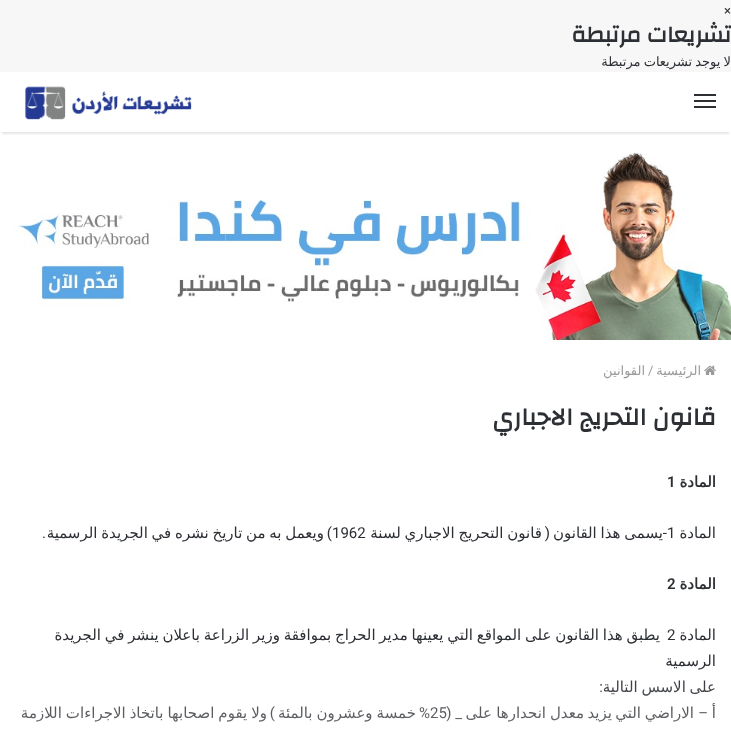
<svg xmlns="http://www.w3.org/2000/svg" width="731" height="729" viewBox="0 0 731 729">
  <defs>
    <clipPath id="clip1"><rect x="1" y="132" width="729" height="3"/></clipPath>
    <linearGradient id="g1" gradientUnits="userSpaceOnUse" x1="366" y1="469" x2="366" y2="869"><stop offset="0.5" stop-color="rgb(255,255,255)" stop-opacity="0"/><stop offset="1" stop-color="rgb(255,255,255)"/></linearGradient>
  </defs>
  <rect width="100%" height="100%" fill="rgb(247,247,247)"/>
  <text x="724" y="15" font-family="Roboto" font-size="13" fill="rgb(44,47,52)">×</text>
  <text x="731" y="42" font-family="Changa" font-size="23" font-weight="bold" direction="rtl" fill="rgb(44,47,52)">تشريعات مرتبطة</text>
  <text x="731" y="66" word-spacing="-1" font-family="DejaVu Sans" font-size="13" direction="rtl" fill="rgb(44,47,52)">لا يوجد تشريعات مرتبطة</text>
  <rect x="0" y="72" width="731" height="657" fill="rgb(255,255,255)"/>
  <g clip-path="url(#clip1)">
    <rect x="2" y="78" width="727" height="56" fill="rgba(0,0,0,0.1)" filter="blur(1px)"/>
  </g>
  <rect x="694" y="100" width="22" height="2" fill="rgb(44,47,52)"/>
  <rect x="694" y="94" width="22" height="2" fill="rgb(44,47,52)"/>
  <rect x="694" y="106" width="22" height="2" fill="rgb(44,47,52)"/>
  <image x="25" y="86" width="167" height="34" href="pic1.png"/>
  <image x="12" y="152" width="719" height="188" href="pic2.png"/>
  <image x="704" y="365" width="12" height="10" href="pic3.png"/>
  <text x="701" y="375" font-family="DejaVu Sans" font-size="13" direction="rtl" fill="rgb(154,154,154)">الرئيسية</text>
  <text x="648" y="375" font-family="Roboto" font-size="13" fill="rgb(154,154,154)">/</text>
  <text x="645" y="375" font-family="DejaVu Sans" font-size="13" direction="rtl" fill="rgb(154,154,154)">القوانين</text>
  <text x="716" y="425" font-family="Changa" font-size="25" font-weight="bold" direction="rtl" fill="rgb(44,47,52)">قانون التحريج الاجباري</text>
  <text x="716" y="487" font-family="DejaVu Sans" font-size="15" font-weight="bold" direction="rtl" fill="rgb(44,47,52)">المادة</text>
  <text x="667" y="487" font-family="Roboto" font-size="15" font-weight="600" fill="rgb(44,47,52)">1</text>
  <g font-family="DejaVu Sans" font-size="15" direction="rtl" fill="rgb(44,47,52)">
    <text x="324" y="538" word-spacing="-1">ويعمل به من تاريخ نشره في الجريدة الرسمية</text>
    <text x="716" y="538">المادة</text>
  </g>
  <text x="667" y="538" font-family="Roboto" font-size="15" fill="rgb(44,47,52)">1</text>
  <text x="663" y="538" word-spacing="-1" font-family="DejaVu Sans" font-size="15" direction="rtl" fill="rgb(44,47,52)">يسمى هذا القانون</text>
  <g font-family="Roboto" font-size="15" direction="rtl" fill="rgb(44,47,52)">
    <text x="667" y="538">-</text>
    <text x="550" y="538">(</text>
  </g>
  <text x="542" y="538" word-spacing="-1" font-family="DejaVu Sans" font-size="15" direction="rtl" fill="rgb(44,47,52)">قانون التحريج الاجباري لسنة</text>
  <text x="332" y="538" font-family="Roboto" font-size="15" fill="rgb(44,47,52)">1962</text>
  <g font-family="Roboto" font-size="15" direction="rtl" fill="rgb(44,47,52)">
    <text x="332" y="538">)</text>
    <text x="46" y="538">.</text>
  </g>
  <text x="716" y="589" font-family="DejaVu Sans" font-size="15" font-weight="bold" direction="rtl" fill="rgb(44,47,52)">المادة</text>
  <text x="667" y="589" font-family="Roboto" font-size="15" font-weight="600" fill="rgb(44,47,52)">2</text>
  <text x="716" y="640" font-family="DejaVu Sans" font-size="15" direction="rtl" fill="rgb(44,47,52)">المادة</text>
  <text x="667" y="640" font-family="Roboto" font-size="15" fill="rgb(44,47,52)">2</text>
  <g font-family="DejaVu Sans" font-size="15" direction="rtl" fill="rgb(44,47,52)">
    <text x="660" y="640" word-spacing="-1">يطبق هذا القانون على المواقع التي يعينها مدير الحراج بموافقة وزير الزراعة باعلان ينشر في الجريدة</text>
    <text>
      <tspan x="716" y="666">الرسمية</tspan>
      <tspan x="716" y="692" word-spacing="-1">على الاسس التالية</tspan>
    </text>
  </g>
  <text x="603" y="692" font-family="Roboto" font-size="15" direction="rtl" fill="rgb(44,47,52)">:</text>
  <text x="716" y="718" font-family="DejaVu Sans" font-size="15" direction="rtl" fill="rgb(44,47,52)">أ</text>
  <text x="708" y="718" font-family="Roboto" font-size="15" direction="rtl" fill="rgb(44,47,52)">–</text>
  <g font-family="DejaVu Sans" font-size="15" direction="rtl" fill="rgb(44,47,52)">
    <text x="694" y="718">الاراضي</text>
    <text x="641" y="718">التي</text>
    <text x="612" y="718">يزيد</text>
    <text x="584" y="718">معدل</text>
    <text x="546" y="718">انحدارها</text>
    <text x="492" y="718">على</text>
  </g>
  <text x="462" y="718" font-family="Roboto" font-size="15" direction="rtl" fill="rgb(44,47,52)">_ (</text>
  <text x="430" y="718" font-family="Roboto" font-size="15" fill="rgb(44,47,52)">25</text>
  <text x="430" y="718" font-family="Roboto" font-size="15" direction="rtl" fill="rgb(44,47,52)">%</text>
  <g font-family="DejaVu Sans" font-size="15" direction="rtl" fill="rgb(44,47,52)">
    <text x="416" y="718" word-spacing="-0.75">خمسة وعشرون بالمئة</text>
    <text x="267" y="718" word-spacing="-0.75">ولا يقوم اصحابها باتخاذ الاجراءات اللازمة</text>
  </g>
  <text x="275" y="718" font-family="Roboto" font-size="15" direction="rtl" fill="rgb(44,47,52)">)</text>
  <rect x="21" y="680" width="695" height="42" fill="url(#g1)"/>
</svg>
